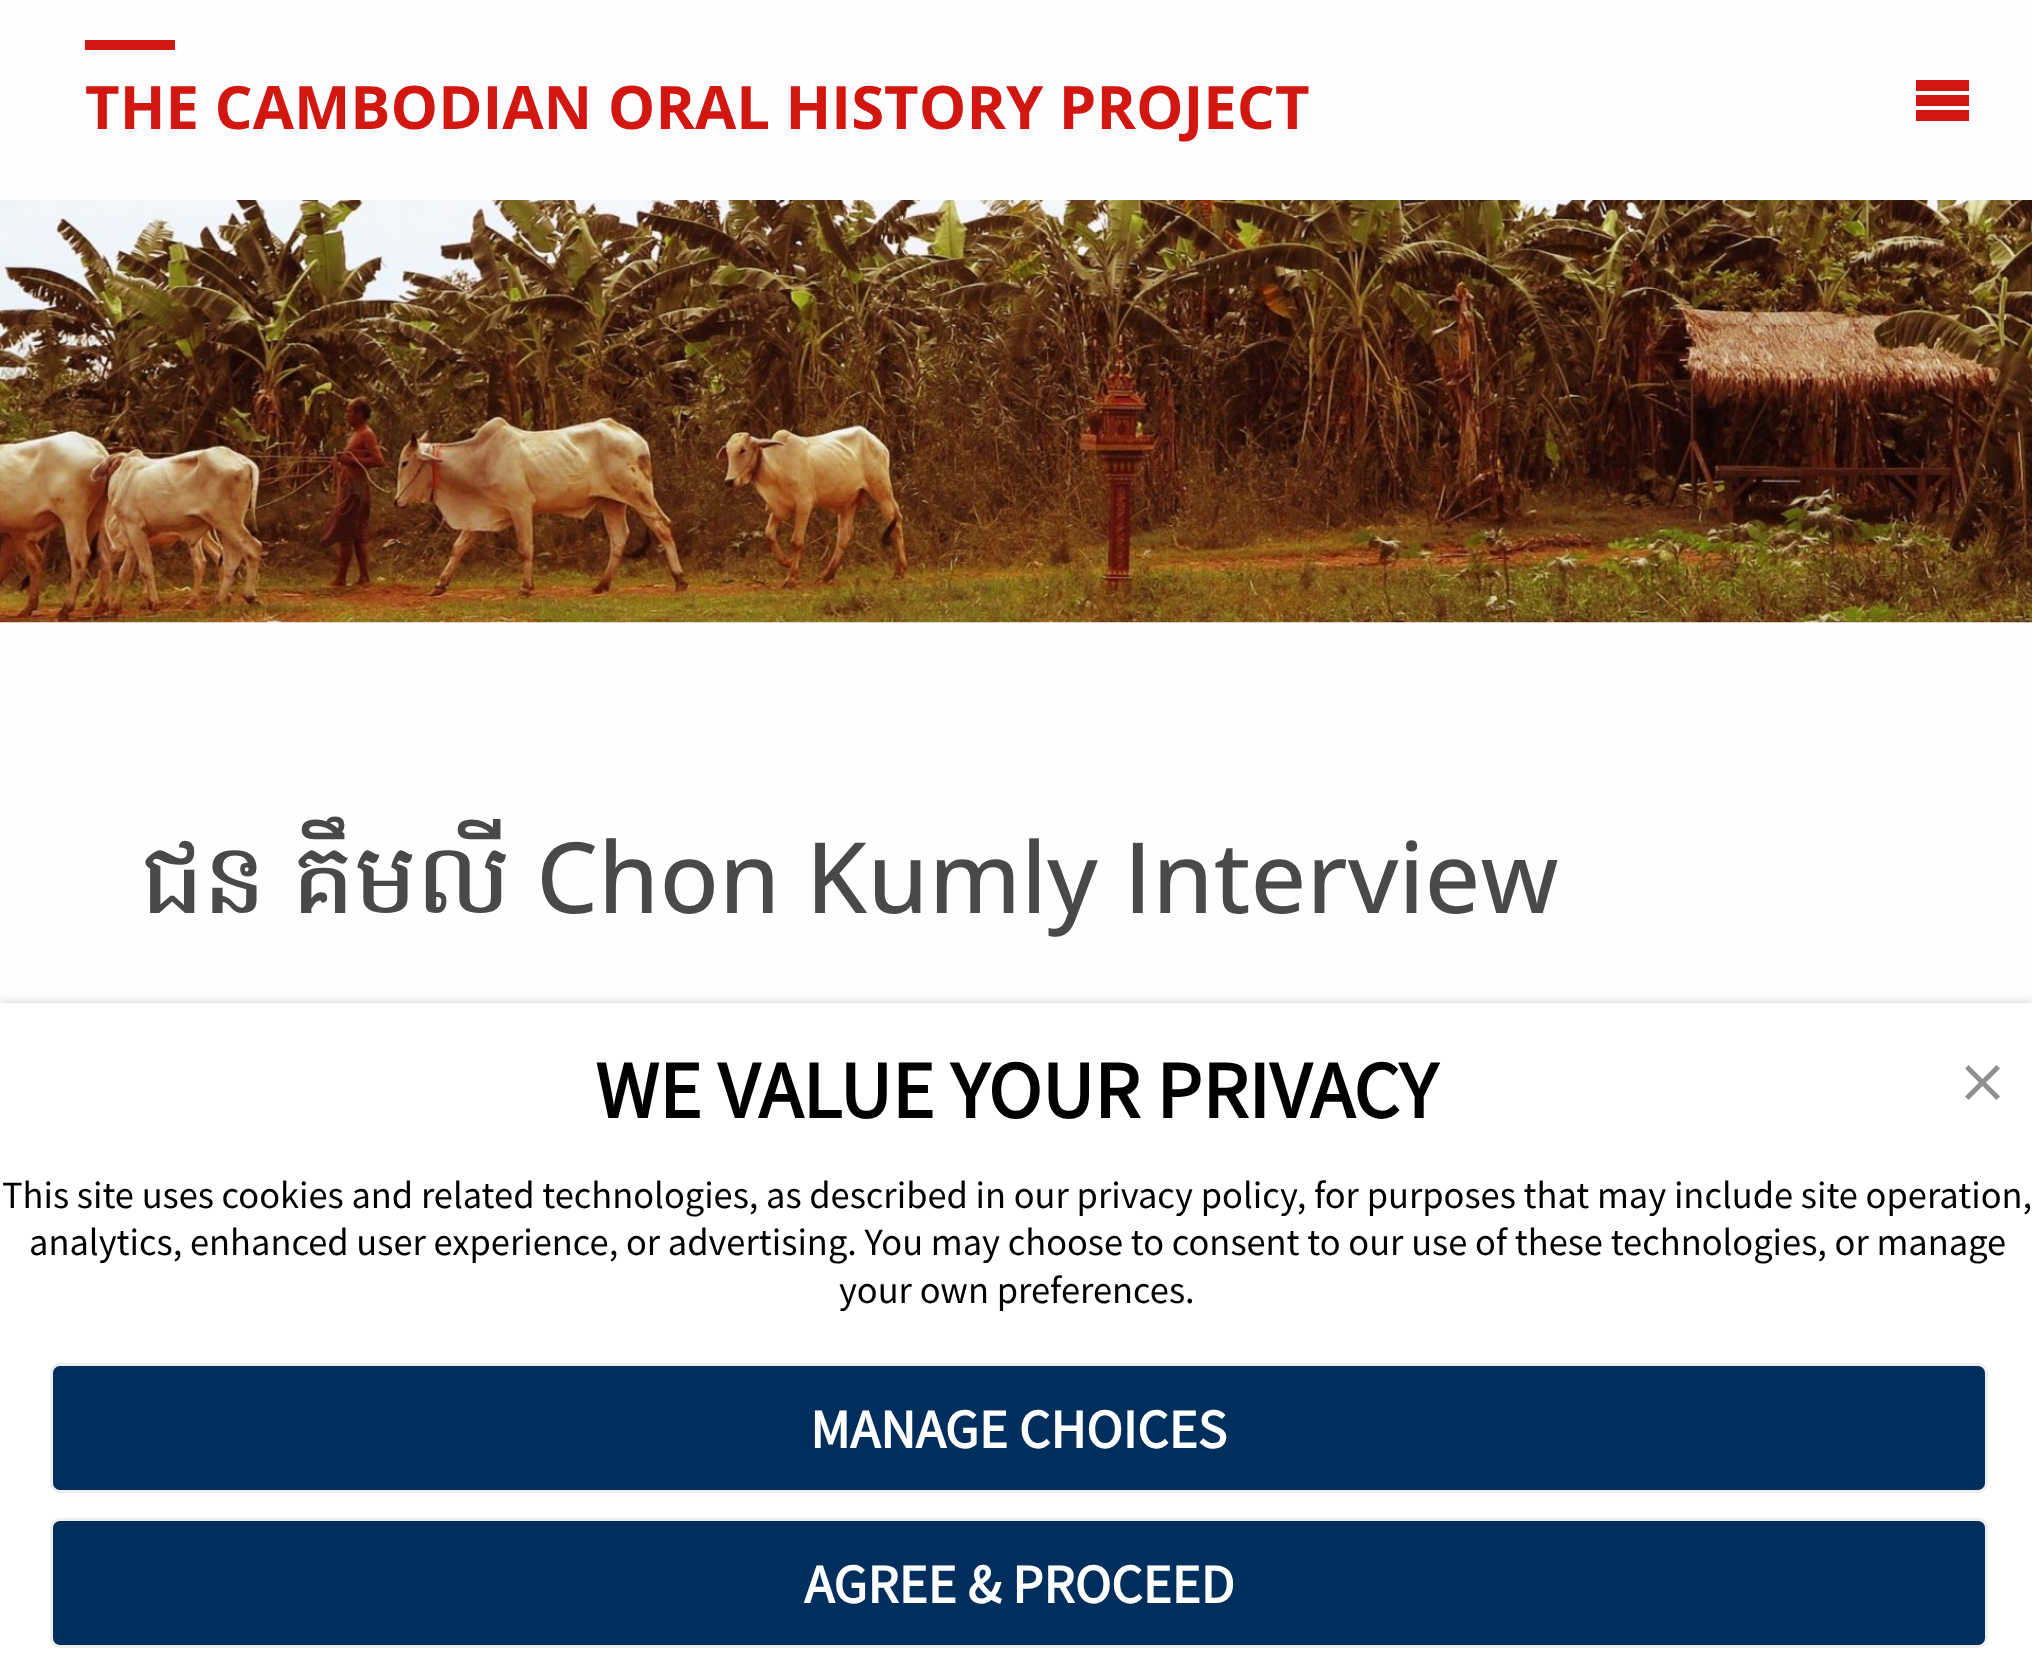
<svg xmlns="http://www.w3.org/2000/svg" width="2032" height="1660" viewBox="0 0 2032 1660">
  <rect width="100%" height="100%" fill="rgb(255,253,255)"/>
  <rect x="85" y="40" width="90" height="10" fill="rgb(209,23,16)"/>
  <text x="85" y="129" font-family="Open Sans" font-size="59.85" font-weight="bold" fill="rgb(209,23,16)">THE CAMBODIAN ORAL HISTORY PROJECT</text>
  <path d="M1916 80H1969V91H1916ZM1916 95H1969V106H1916ZM1916 110H1969V121H1916Z" fill="rgb(209,23,16)"/>
  <image x="0" y="200" width="2032" height="423" href="pic1.png"/>
  <g font-family="Hanuman" font-size="98.25" font-weight="500" fill="rgb(73,73,73)">
    <text x="141" y="913">ជន</text>
    <text x="292" y="913">គឹមលី</text>
  </g>
  <text x="536" y="913" font-family="Open Sans" font-size="98.25" font-weight="500" fill="rgb(73,73,73)">Chon Kumly Interview</text>
  <rect x="0" y="1003" width="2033" height="657" fill="rgba(0,0,0,0.2)" filter="blur(5px)"/>
  <rect x="0" y="1003" width="2032" height="657" fill="rgb(255,255,255)"/>
  <text x="595" y="1118" font-family="Source Sans Pro" font-size="81" font-weight="bold" fill="rgb(0,0,0)">WE VALUE YOUR PRIVACY</text>
  <g font-family="Source Sans Pro" font-size="38.48" fill="rgb(0,0,0)">
    <text x="2" y="1208">This site uses cookies and related technologies, as described in our privacy policy, for purposes that may include site operation,</text>
    <text x="29" y="1255">analytics, enhanced user experience, or advertising. You may choose to consent to our use of these technologies, or manage</text>
    <text x="839" y="1303">your own preferences.</text>
  </g>
  <path d="M2000 1068.5L1986 1082.5L2000 1096.5L1996.5 1100L1982.5 1086L1968.5 1100L1965 1096.5L1979 1082.5L1965 1068.5L1968.5 1065L1982.5 1079L1996.5 1065Z" fill="rgb(143,143,143)" fill-rule="evenodd"/>
  <rect x="51.5" y="1364.5" width="1935" height="127" rx="8.5" fill="rgb(0,46,93)" stroke="rgb(238,238,238)" stroke-width="3"/>
  <text x="810" y="1448" font-family="Source Sans Pro" font-size="55" font-weight="bold" fill="rgb(255,255,255)">MANAGE CHOICES</text>
  <rect x="51.5" y="1519.5" width="1935" height="127" rx="8.5" fill="rgb(0,46,93)" stroke="rgb(238,238,238)" stroke-width="3"/>
  <text x="804" y="1603" font-family="Source Sans Pro" font-size="55" font-weight="bold" fill="rgb(255,255,255)">AGREE &amp; PROCEED</text>
</svg>
